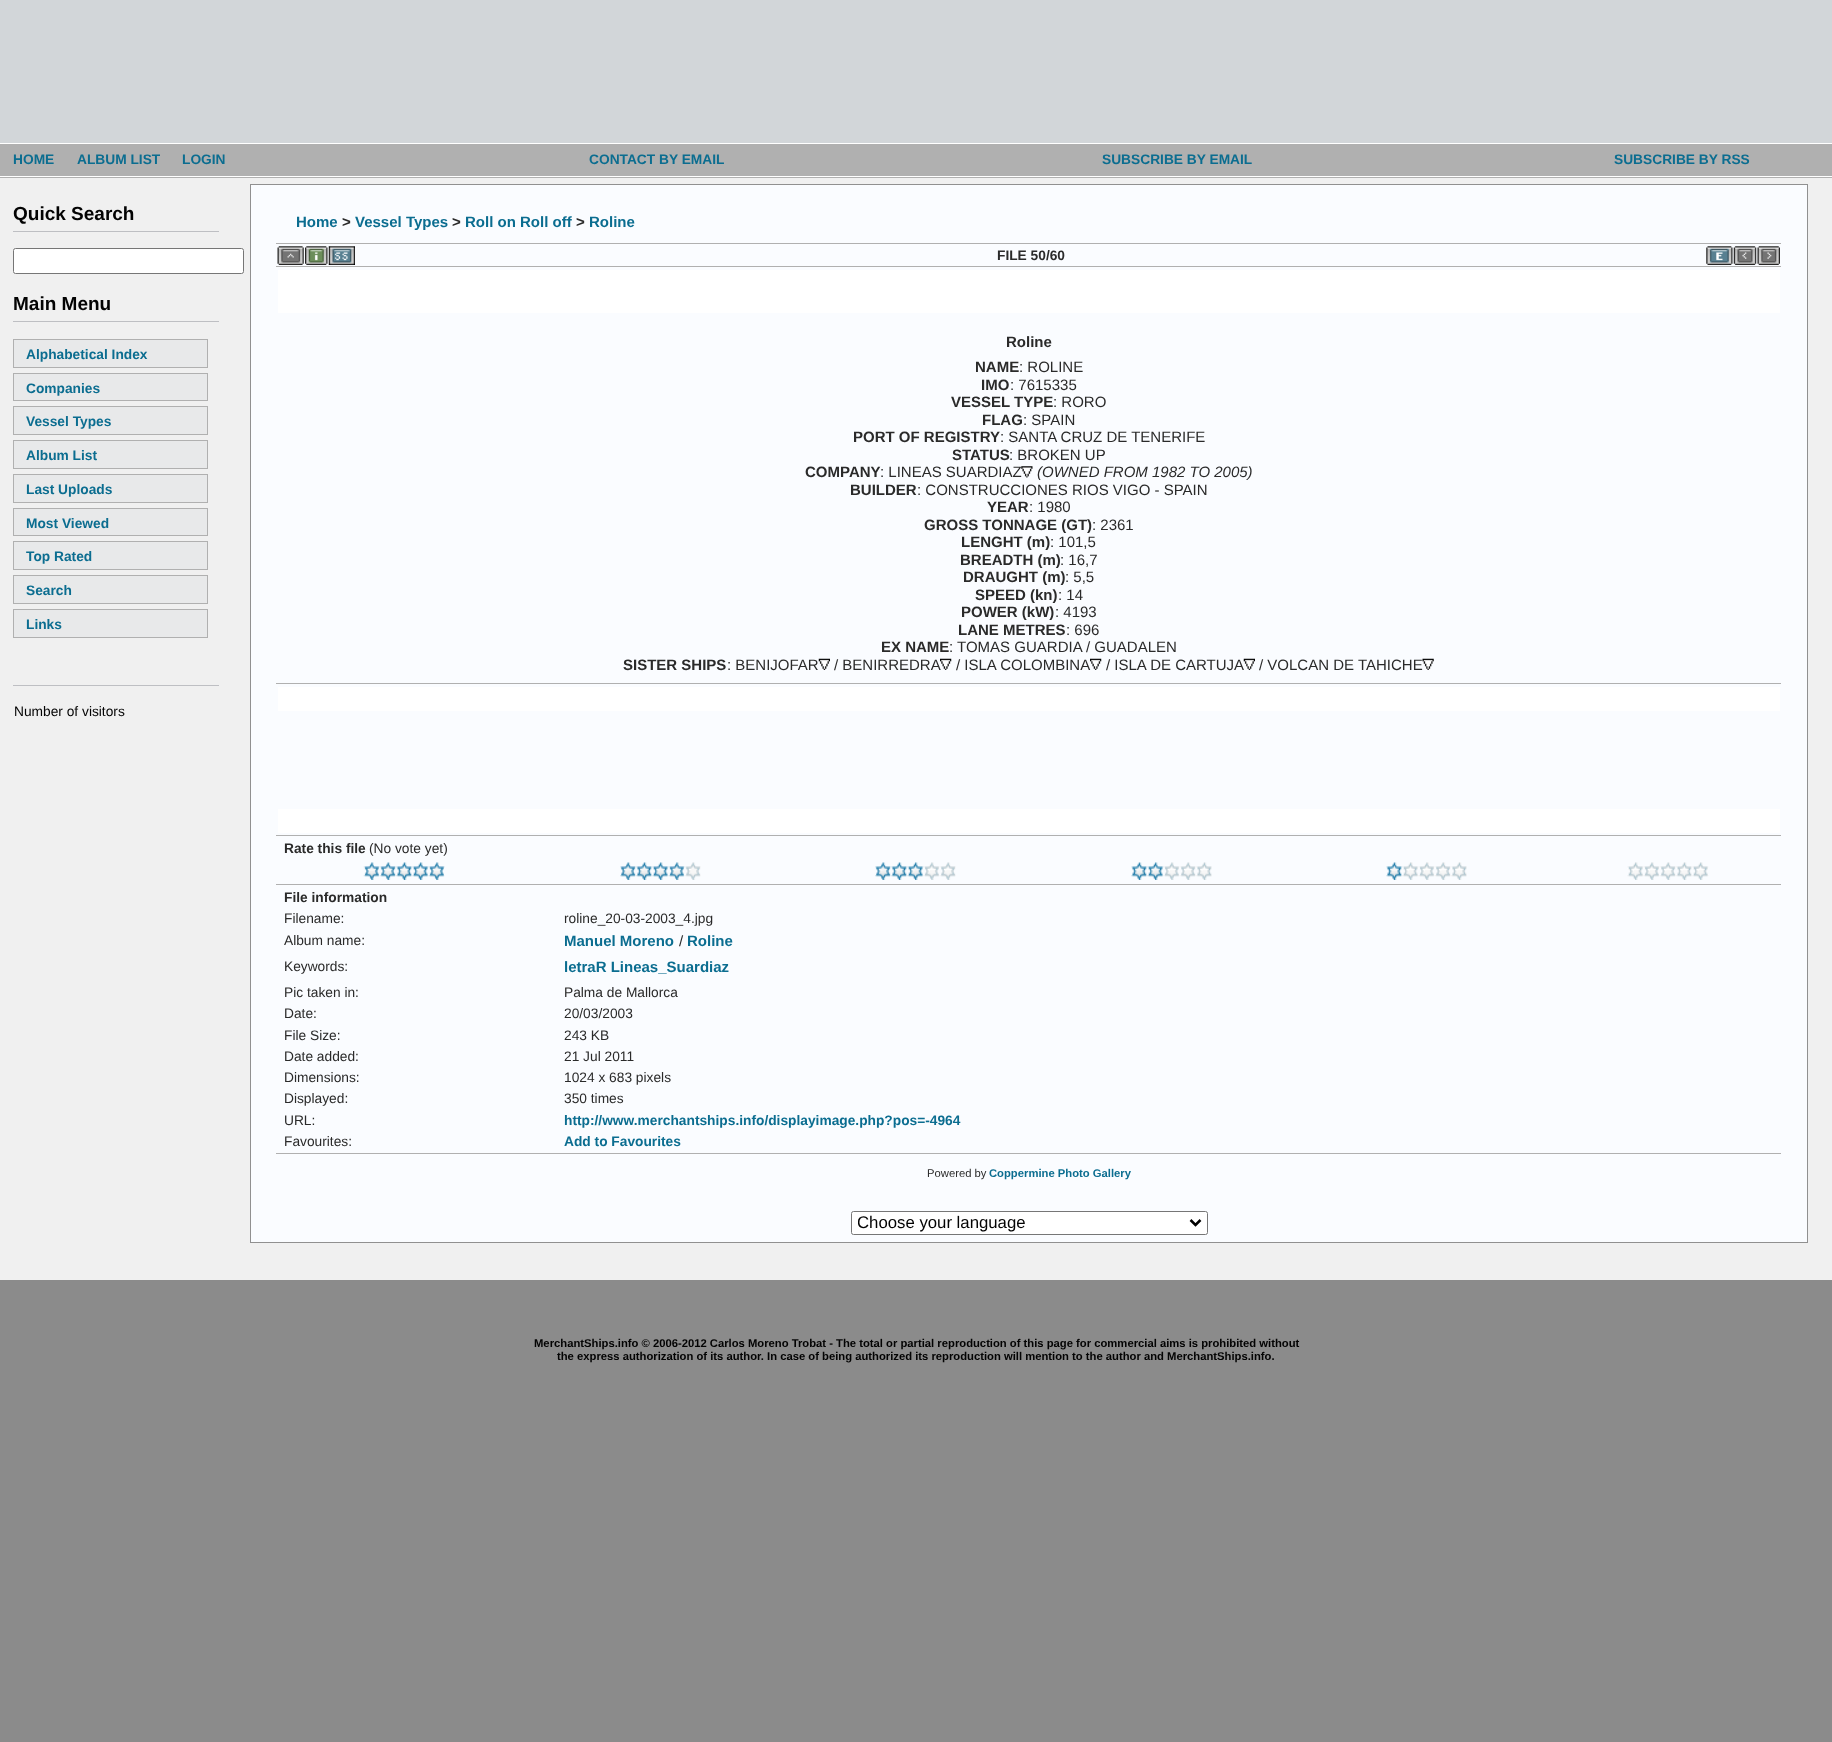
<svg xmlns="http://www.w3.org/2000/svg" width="1832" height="1742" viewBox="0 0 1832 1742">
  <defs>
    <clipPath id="clip1"><rect x="858" y="1213" width="328" height="21"/></clipPath>
  </defs>
  <rect width="100%" height="100%" fill="rgb(139,139,139)"/>
  <rect x="0" y="178" width="1832" height="1102" fill="rgb(240,240,240)"/>
  <rect x="0" y="0" width="1832" height="143" fill="rgb(210,214,217)"/>
  <rect x="0" y="144" width="1832" height="34" fill="rgb(176,176,176)"/>
  <rect x="0" y="143" width="1832" height="1" fill="rgb(255,255,255)"/>
  <rect x="0" y="176" width="1832" height="1" fill="rgb(255,255,255)"/>
  <g font-family="Liberation Sans" font-size="13.75" font-weight="bold" fill="rgb(11,109,144)">
    <text x="13" y="164">HOME</text>
    <text x="77" y="164">ALBUM LIST</text>
    <text x="182" y="164">LOGIN</text>
    <text x="589" y="164">CONTACT BY EMAIL</text>
    <text x="1102" y="164">SUBSCRIBE BY EMAIL</text>
    <text x="1614" y="164">SUBSCRIBE BY RSS</text>
  </g>
  <rect x="13" y="231" width="206" height="1" fill="rgb(190,191,195)"/>
  <text x="13" y="220" font-family="Liberation Sans" font-size="19" font-weight="bold" fill="rgb(3,3,3)">Quick Search</text>
  <rect x="13.5" y="248.5" width="230" height="25" rx="2" fill="rgb(255,255,255)" stroke="rgb(118,118,118)"/>
  <rect x="13" y="321" width="206" height="1" fill="rgb(190,191,195)"/>
  <text x="13" y="310" font-family="Liberation Sans" font-size="19" font-weight="bold" fill="rgb(3,3,3)">Main Menu</text>
  <rect x="13.5" y="339.5" width="194" height="28" fill="rgb(232,233,234)" stroke="rgb(176,176,176)"/>
  <text x="26" y="359" font-family="Liberation Sans" font-size="13.75" font-weight="bold" fill="rgb(11,109,144)">Alphabetical Index</text>
  <rect x="13.5" y="373.5" width="194" height="27" fill="rgb(232,233,234)" stroke="rgb(176,176,176)"/>
  <text x="26" y="393" font-family="Liberation Sans" font-size="13.75" font-weight="bold" fill="rgb(11,109,144)">Companies</text>
  <rect x="13.5" y="406.5" width="194" height="28" fill="rgb(232,233,234)" stroke="rgb(176,176,176)"/>
  <text x="26" y="426" font-family="Liberation Sans" font-size="13.75" font-weight="bold" fill="rgb(11,109,144)">Vessel Types</text>
  <rect x="13.5" y="440.5" width="194" height="28" fill="rgb(232,233,234)" stroke="rgb(176,176,176)"/>
  <text x="26" y="460" font-family="Liberation Sans" font-size="13.75" font-weight="bold" fill="rgb(11,109,144)">Album List</text>
  <rect x="13.5" y="474.5" width="194" height="28" fill="rgb(232,233,234)" stroke="rgb(176,176,176)"/>
  <text x="26" y="494" font-family="Liberation Sans" font-size="13.75" font-weight="bold" fill="rgb(11,109,144)">Last Uploads</text>
  <rect x="13.5" y="508.5" width="194" height="27" fill="rgb(232,233,234)" stroke="rgb(176,176,176)"/>
  <text x="26" y="528" font-family="Liberation Sans" font-size="13.75" font-weight="bold" fill="rgb(11,109,144)">Most Viewed</text>
  <rect x="13.5" y="541.5" width="194" height="28" fill="rgb(232,233,234)" stroke="rgb(176,176,176)"/>
  <text x="26" y="561" font-family="Liberation Sans" font-size="13.75" font-weight="bold" fill="rgb(11,109,144)">Top Rated</text>
  <rect x="13.5" y="575.5" width="194" height="28" fill="rgb(232,233,234)" stroke="rgb(176,176,176)"/>
  <text x="26" y="595" font-family="Liberation Sans" font-size="13.75" font-weight="bold" fill="rgb(11,109,144)">Search</text>
  <rect x="13.5" y="609.5" width="194" height="28" fill="rgb(232,233,234)" stroke="rgb(176,176,176)"/>
  <text x="26" y="629" font-family="Liberation Sans" font-size="13.75" font-weight="bold" fill="rgb(11,109,144)">Links</text>
  <rect x="13" y="685" width="206" height="1" fill="rgb(190,191,195)"/>
  <text x="14" y="716" font-family="Liberation Sans" font-size="13.75" fill="rgb(3,3,3)">Number of visitors</text>
  <rect x="250.5" y="184.5" width="1557" height="1058" fill="rgb(250,252,255)" stroke="rgb(144,144,144)"/>
  <rect x="276" y="243" width="1505" height="1" fill="rgb(176,176,176)"/>
  <text x="296" y="227" font-family="Liberation Sans" font-size="15" font-weight="bold" fill="rgb(11,109,144)">Home</text>
  <text x="342" y="227" font-family="Liberation Sans" font-size="15" font-weight="bold" fill="rgb(42,42,42)">&gt;</text>
  <text x="355" y="227" font-family="Liberation Sans" font-size="15" font-weight="bold" fill="rgb(11,109,144)">Vessel Types</text>
  <text x="452" y="227" font-family="Liberation Sans" font-size="15" font-weight="bold" fill="rgb(42,42,42)">&gt;</text>
  <text x="465" y="227" font-family="Liberation Sans" font-size="15" font-weight="bold" fill="rgb(11,109,144)">Roll on Roll off</text>
  <text x="576" y="227" font-family="Liberation Sans" font-size="15" font-weight="bold" fill="rgb(42,42,42)">&gt;</text>
  <text x="589" y="227" font-family="Liberation Sans" font-size="15" font-weight="bold" fill="rgb(11,109,144)">Roline</text>
  <rect x="276" y="266" width="1505" height="1" fill="rgb(176,176,176)"/>
  <image x="277" y="246" width="27" height="19" href="pic1.png"/>
  <image x="305" y="246" width="23" height="19" href="pic2.png"/>
  <image x="328" y="246" width="27" height="19" href="pic3.png"/>
  <text x="997" y="260" font-family="Liberation Sans" font-size="13.75" font-weight="bold" fill="rgb(42,42,42)">FILE 50/60</text>
  <image x="1706" y="246" width="27" height="19" href="pic4.png"/>
  <image x="1733" y="246" width="24" height="19" href="pic5.png"/>
  <image x="1757" y="246" width="23" height="19" href="pic6.png"/>
  <rect x="276" y="683" width="1505" height="1" fill="rgb(176,176,176)"/>
  <rect x="278" y="270" width="1502" height="43" fill="rgb(255,255,255)"/>
  <g font-family="Liberation Sans" font-size="15" font-weight="bold" fill="rgb(42,42,42)">
    <text x="1006" y="347">Roline</text>
    <text x="975" y="372">NAME</text>
  </g>
  <text x="1019" y="372" font-family="Liberation Sans" font-size="15" fill="rgb(42,42,42)">: ROLINE</text>
  <text x="981" y="390" font-family="Liberation Sans" font-size="15" font-weight="bold" fill="rgb(42,42,42)">IMO</text>
  <text x="1010" y="390" font-family="Liberation Sans" font-size="15" fill="rgb(42,42,42)">: 7615335</text>
  <text x="951" y="407" font-family="Liberation Sans" font-size="15" font-weight="bold" fill="rgb(42,42,42)">VESSEL TYPE</text>
  <text x="1053" y="407" font-family="Liberation Sans" font-size="15" fill="rgb(42,42,42)">: RORO</text>
  <text x="982" y="425" font-family="Liberation Sans" font-size="15" font-weight="bold" fill="rgb(42,42,42)">FLAG</text>
  <text x="1023" y="425" font-family="Liberation Sans" font-size="15" fill="rgb(42,42,42)">: SPAIN</text>
  <text x="853" y="442" font-family="Liberation Sans" font-size="15" font-weight="bold" fill="rgb(42,42,42)">PORT OF REGISTRY</text>
  <text x="1000" y="442" font-family="Liberation Sans" font-size="15" fill="rgb(42,42,42)">: SANTA CRUZ DE TENERIFE</text>
  <text x="952" y="460" font-family="Liberation Sans" font-size="15" font-weight="bold" fill="rgb(42,42,42)">STATUS</text>
  <text x="1009" y="460" font-family="Liberation Sans" font-size="15" fill="rgb(42,42,42)">: BROKEN UP</text>
  <text x="805" y="477" font-family="Liberation Sans" font-size="15" font-weight="bold" fill="rgb(42,42,42)">COMPANY</text>
  <text x="880" y="477" font-family="Liberation Sans" font-size="15" fill="rgb(42,42,42)">: LINEAS SUARDIAZ</text>
  <image x="1021" y="466" width="12" height="12" href="pic7.png"/>
  <text x="1037" y="477" font-family="Liberation Sans" font-size="15" font-style="italic" fill="rgb(42,42,42)">(OWNED FROM 1982 TO 2005)</text>
  <text x="850" y="495" font-family="Liberation Sans" font-size="15" font-weight="bold" fill="rgb(42,42,42)">BUILDER</text>
  <text x="917" y="495" font-family="Liberation Sans" font-size="15" fill="rgb(42,42,42)">: CONSTRUCCIONES RIOS VIGO - SPAIN</text>
  <text x="987" y="512" font-family="Liberation Sans" font-size="15" font-weight="bold" fill="rgb(42,42,42)">YEAR</text>
  <text x="1029" y="512" font-family="Liberation Sans" font-size="15" fill="rgb(42,42,42)">: 1980</text>
  <text x="924" y="530" font-family="Liberation Sans" font-size="15" font-weight="bold" fill="rgb(42,42,42)">GROSS TONNAGE (GT)</text>
  <text x="1092" y="530" font-family="Liberation Sans" font-size="15" fill="rgb(42,42,42)">: 2361</text>
  <text x="961" y="547" font-family="Liberation Sans" font-size="15" font-weight="bold" fill="rgb(42,42,42)">LENGHT (m)</text>
  <text x="1050" y="547" font-family="Liberation Sans" font-size="15" fill="rgb(42,42,42)">: 101,5</text>
  <text x="960" y="565" font-family="Liberation Sans" font-size="15" font-weight="bold" fill="rgb(42,42,42)">BREADTH (m)</text>
  <text x="1060" y="565" font-family="Liberation Sans" font-size="15" fill="rgb(42,42,42)">: 16,7</text>
  <text x="963" y="582" font-family="Liberation Sans" font-size="15" font-weight="bold" fill="rgb(42,42,42)">DRAUGHT (m)</text>
  <text x="1065" y="582" font-family="Liberation Sans" font-size="15" fill="rgb(42,42,42)">: 5,5</text>
  <text x="975" y="600" font-family="Liberation Sans" font-size="15" font-weight="bold" fill="rgb(42,42,42)">SPEED (kn)</text>
  <text x="1058" y="600" font-family="Liberation Sans" font-size="15" fill="rgb(42,42,42)">: 14</text>
  <text x="961" y="617" font-family="Liberation Sans" font-size="15" font-weight="bold" fill="rgb(42,42,42)">POWER (kW)</text>
  <text x="1055" y="617" font-family="Liberation Sans" font-size="15" fill="rgb(42,42,42)">: 4193</text>
  <text x="958" y="635" font-family="Liberation Sans" font-size="15" font-weight="bold" fill="rgb(42,42,42)">LANE METRES</text>
  <text x="1066" y="635" font-family="Liberation Sans" font-size="15" fill="rgb(42,42,42)">: 696</text>
  <text x="881" y="652" font-family="Liberation Sans" font-size="15" font-weight="bold" fill="rgb(42,42,42)">EX NAME</text>
  <text x="949" y="652" font-family="Liberation Sans" font-size="15" fill="rgb(42,42,42)">: TOMAS GUARDIA / GUADALEN</text>
  <text x="623" y="670" font-family="Liberation Sans" font-size="15" font-weight="bold" fill="rgb(42,42,42)">SISTER SHIPS</text>
  <text x="727" y="670" font-family="Liberation Sans" font-size="15" fill="rgb(42,42,42)">: BENIJOFAR</text>
  <image x="818" y="658" width="12" height="12" href="pic8.png"/>
  <text x="834" y="670" font-family="Liberation Sans" font-size="15" fill="rgb(42,42,42)">/ BENIRREDRA</text>
  <image x="940" y="658" width="12" height="12" href="pic9.png"/>
  <text x="956" y="670" font-family="Liberation Sans" font-size="15" fill="rgb(42,42,42)">/ ISLA COLOMBINA</text>
  <image x="1090" y="658" width="12" height="12" href="pic10.png"/>
  <text x="1106" y="670" font-family="Liberation Sans" font-size="15" fill="rgb(42,42,42)">/ ISLA DE CARTUJA</text>
  <image x="1243" y="658" width="12" height="12" href="pic11.png"/>
  <text x="1259" y="670" font-family="Liberation Sans" font-size="15" fill="rgb(42,42,42)">/ VOLCAN DE TAHICHE</text>
  <image x="1422" y="658" width="12" height="12" href="pic12.png"/>
  <rect x="276" y="835" width="1505" height="1" fill="rgb(176,176,176)"/>
  <rect x="278" y="687" width="1502" height="24" fill="rgb(255,255,255)"/>
  <rect x="278" y="809" width="1502" height="24" fill="rgb(255,255,255)"/>
  <rect x="276" y="884" width="1505" height="1" fill="rgb(176,176,176)"/>
  <text x="284" y="853" font-family="Liberation Sans" font-size="13.75" font-weight="bold" fill="rgb(42,42,42)">Rate this file</text>
  <text x="369" y="853" font-family="Liberation Sans" font-size="13.75" fill="rgb(42,42,42)">(No vote yet)</text>
  <image x="363" y="862" width="82" height="18" href="pic13.png"/>
  <image x="620" y="862" width="81" height="18" href="pic14.png"/>
  <image x="875" y="862" width="81" height="18" href="pic15.png"/>
  <image x="1131" y="862" width="81" height="18" href="pic16.png"/>
  <image x="1386" y="862" width="81" height="18" href="pic17.png"/>
  <image x="1627" y="862" width="82" height="18" href="pic18.png"/>
  <rect x="276" y="1153" width="1505" height="1" fill="rgb(176,176,176)"/>
  <text x="284" y="902" font-family="Liberation Sans" font-size="13.75" font-weight="bold" fill="rgb(42,42,42)">File information</text>
  <g font-family="Liberation Sans" font-size="13.75" fill="rgb(42,42,42)">
    <text x="284" y="923">Filename:</text>
    <text x="564" y="923">roline_20-03-2003_4.jpg</text>
    <text x="284" y="945">Album name:</text>
  </g>
  <text x="564" y="946" font-family="Liberation Sans" font-size="15" font-weight="bold" fill="rgb(11,109,144)">Manuel Moreno</text>
  <text x="679" y="946" font-family="Liberation Sans" font-size="15" fill="rgb(42,42,42)">/</text>
  <text x="687" y="946" font-family="Liberation Sans" font-size="15" font-weight="bold" fill="rgb(11,109,144)">Roline</text>
  <text x="284" y="971" font-family="Liberation Sans" font-size="13.75" fill="rgb(42,42,42)">Keywords:</text>
  <text x="564" y="972" font-family="Liberation Sans" font-size="15" font-weight="bold" fill="rgb(11,109,144)">letraR Lineas_Suardiaz</text>
  <g font-family="Liberation Sans" font-size="13.75" fill="rgb(42,42,42)">
    <text x="284" y="997">Pic taken in:</text>
    <text x="564" y="997">Palma de Mallorca</text>
    <text x="284" y="1018">Date:</text>
    <text x="564" y="1018">20/03/2003</text>
    <text x="284" y="1040">File Size:</text>
    <text x="564" y="1040">243 KB</text>
    <text x="284" y="1061">Date added:</text>
    <text x="564" y="1061">21 Jul 2011</text>
    <text x="284" y="1082">Dimensions:</text>
    <text x="564" y="1082">1024 x 683 pixels</text>
    <text x="284" y="1103">Displayed:</text>
    <text x="564" y="1103">350 times</text>
    <text x="284" y="1125">URL:</text>
  </g>
  <text x="564" y="1125" font-family="Liberation Sans" font-size="13.75" font-weight="bold" fill="rgb(11,109,144)">http://www.merchantships.info/displayimage.php?pos=-4964</text>
  <text x="284" y="1146" font-family="Liberation Sans" font-size="13.75" fill="rgb(42,42,42)">Favourites:</text>
  <text x="564" y="1146" font-family="Liberation Sans" font-size="13.75" font-weight="bold" fill="rgb(11,109,144)">Add to Favourites</text>
  <text x="927" y="1177" font-family="Liberation Sans" font-size="11.25" fill="rgb(42,42,42)">Powered by</text>
  <text x="989" y="1177" font-family="Liberation Sans" font-size="11.25" font-weight="bold" fill="rgb(11,109,144)">Coppermine Photo Gallery</text>
  <rect x="851.5" y="1211.5" width="356" height="23" rx="2" fill="rgb(255,255,255)" stroke="rgb(118,118,118)"/>
  <path d="M1190.5 1220L1195.5 1225L1200.5 1220" fill="none" stroke="rgb(0,0,0)" stroke-width="2.5"/>
  <g clip-path="url(#clip1)">
    <text x="857" y="1228" font-family="Liberation Sans" font-size="16.75" fill="rgb(3,3,3)">Choose your language</text>
  </g>
  <g font-family="Liberation Sans" font-size="11.25" font-weight="bold" fill="rgb(3,3,3)">
    <text x="534" y="1347">MerchantShips.info © 2006-2012 Carlos Moreno Trobat - The total or partial reproduction of this page for commercial aims is prohibited without</text>
    <text x="557" y="1360">the express authorization of its author. In case of being authorized its reproduction will mention to the author and MerchantShips.info.</text>
  </g>
</svg>
